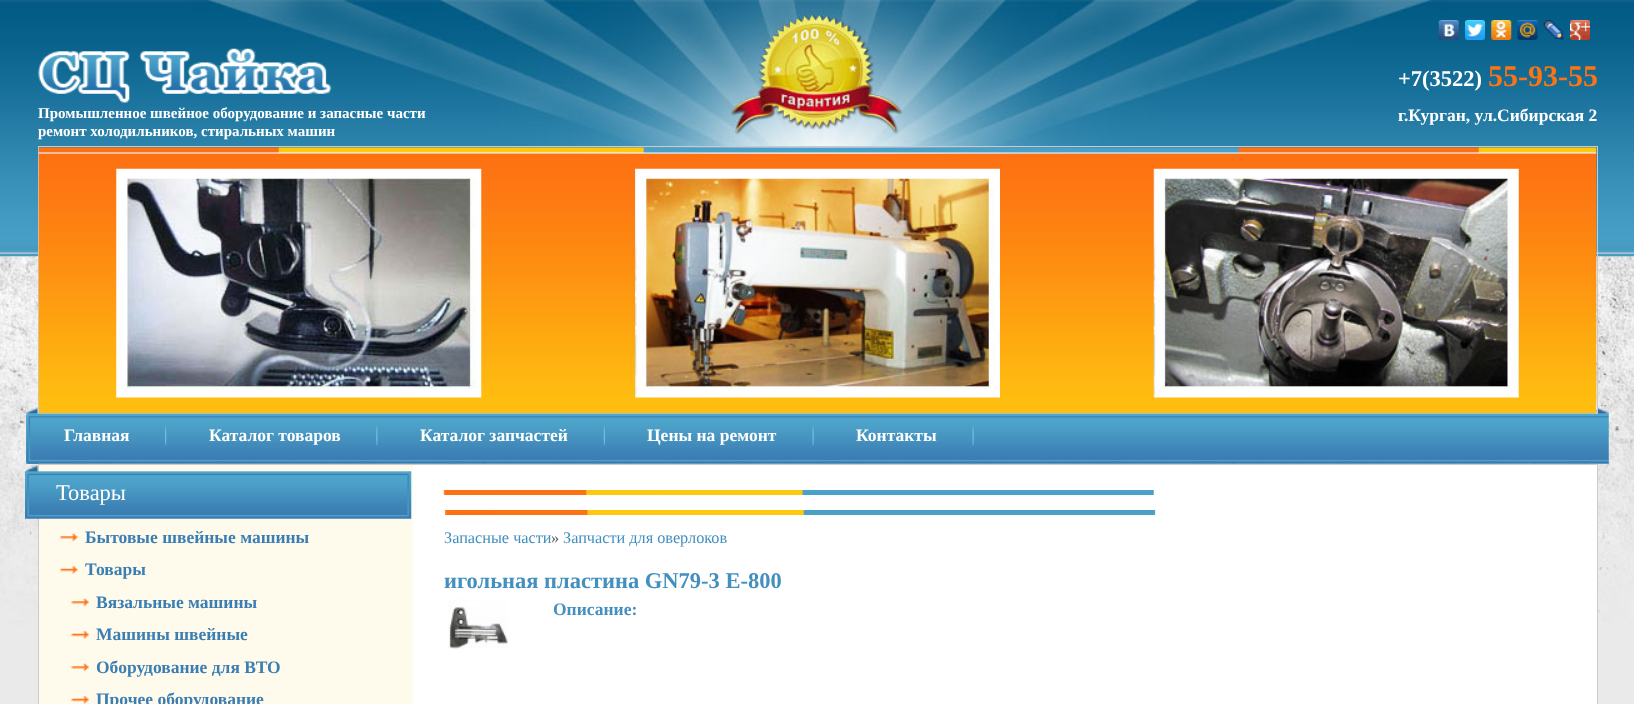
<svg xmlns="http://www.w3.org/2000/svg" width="1634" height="704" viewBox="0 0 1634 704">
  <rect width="100%" height="100%" fill="rgb(234,234,234)"/>
  <image x="0" y="256" width="1634" height="371" href="pic1.png"/>
  <image x="0" y="0" width="1634" height="257" href="pic8.png"/>
  <image x="178" y="0" width="1279" height="154" href="pic9.png"/>
  <image x="1438" y="20" width="21" height="20" href="pic2.png"/>
  <image x="1465" y="20" width="20" height="20" href="pic3.png"/>
  <image x="1491" y="20" width="21" height="20" href="pic4.png"/>
  <image x="1517" y="20" width="21" height="20" href="pic5.png"/>
  <image x="1543" y="20" width="21" height="20" href="pic6.png"/>
  <image x="1570" y="20" width="20" height="20" href="pic7.png"/>
  <text x="1398" y="86" font-family="Liberation Serif" font-size="22.5" font-weight="bold" fill="rgb(255,255,255)">+7(3522)</text>
  <text x="1488" y="86" font-family="Liberation Serif" font-size="30" font-weight="bold" fill="rgb(253,116,18)">55-93-55</text>
  <text x="1398" y="121" font-family="Liberation Serif" font-size="17.5" font-weight="bold" fill="rgb(255,255,255)">г.Курган, ул.Сибирская 2</text>
  <image x="38" y="48" width="294" height="55" href="pic10.png"/>
  <g font-family="Liberation Serif" font-size="15" font-weight="bold" fill="rgb(255,255,255)">
    <text>
      <tspan x="38" y="118">Промышленное швейное оборудование и запасные части</tspan>
      <tspan x="38" y="136">ремонт холодильников, стиральных машин</tspan>
    </text>
  </g>
  <image x="26" y="407" width="12" height="7" href="pic11.png"/>
  <image x="1598" y="407" width="11" height="7" href="pic12.png"/>
  <rect x="38.5" y="146.5" width="1559" height="267" fill="none" stroke="rgb(204,202,202)"/>
  <image x="38" y="147" width="1559" height="7" href="pic13.png"/>
  <rect x="39" y="405" width="1557" height="8" fill="rgb(255,190,15)"/>
  <image x="38" y="153" width="1559" height="252" href="pic14.png"/>
  <image x="116" y="168" width="366" height="230" href="pic15.png"/>
  <image x="635" y="168" width="365" height="230" href="pic16.png"/>
  <image x="1153" y="168" width="366" height="230" href="pic17.png"/>
  <image x="26" y="413" width="1583" height="51" href="pic18.png"/>
  <image x="26" y="413" width="13" height="51" href="pic19.png"/>
  <text x="64" y="441" font-family="Liberation Serif" font-size="17.5" font-weight="bold" fill="rgb(255,255,255)">Главная</text>
  <image x="165" y="426" width="2" height="19" href="pic20.png"/>
  <text x="209" y="441" font-family="Liberation Serif" font-size="17.5" font-weight="bold" fill="rgb(255,255,255)">Каталог товаров</text>
  <image x="376" y="426" width="2" height="19" href="pic21.png"/>
  <text x="420" y="441" font-family="Liberation Serif" font-size="17.5" font-weight="bold" fill="rgb(255,255,255)">Каталог запчастей</text>
  <image x="603" y="426" width="2" height="19" href="pic22.png"/>
  <text x="647" y="441" font-family="Liberation Serif" font-size="17.5" font-weight="bold" fill="rgb(255,255,255)">Цены на ремонт</text>
  <image x="812" y="426" width="2" height="19" href="pic23.png"/>
  <text x="856" y="441" font-family="Liberation Serif" font-size="17.5" font-weight="bold" fill="rgb(255,255,255)">Контакты</text>
  <image x="972" y="426" width="2" height="19" href="pic23.png"/>
  <rect x="413" y="465" width="1184" height="239" fill="rgb(255,255,255)"/>
  <rect x="38.5" y="464.5" width="1559" height="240" fill="none" stroke="rgb(204,202,202)"/>
  <rect x="39" y="465" width="374" height="239" fill="rgb(255,251,236)"/>
  <image x="25" y="465" width="387" height="54" href="pic24.png"/>
  <text x="56" y="500" font-family="Liberation Serif" font-size="22.5" fill="rgb(255,255,255)">Товары</text>
  <image x="60" y="533" width="18" height="9" href="pic25.png"/>
  <text x="85" y="543" font-family="Liberation Serif" font-size="17.5" font-weight="bold" fill="rgb(59,126,179)">Бытовые швейные машины</text>
  <image x="60" y="566" width="18" height="8" href="pic26.png"/>
  <text x="85" y="575" font-family="Liberation Serif" font-size="17.5" font-weight="bold" fill="rgb(59,126,179)">Товары</text>
  <image x="71" y="598" width="18" height="9" href="pic27.png"/>
  <text x="96" y="608" font-family="Liberation Serif" font-size="17.5" font-weight="bold" fill="rgb(59,126,179)">Вязальные машины</text>
  <image x="71" y="631" width="18" height="8" href="pic28.png"/>
  <text x="96" y="640" font-family="Liberation Serif" font-size="17.5" font-weight="bold" fill="rgb(59,126,179)">Машины швейные</text>
  <image x="71" y="663" width="18" height="9" href="pic27.png"/>
  <text x="96" y="673" font-family="Liberation Serif" font-size="17.5" font-weight="bold" fill="rgb(59,126,179)">Оборудование для ВТО</text>
  <image x="71" y="696" width="18" height="8" href="pic28.png"/>
  <text x="96" y="705" font-family="Liberation Serif" font-size="17.5" font-weight="bold" fill="rgb(59,126,179)">Прочее оборудование</text>
  <image x="443" y="490" width="711" height="5" href="pic29.png"/>
  <image x="445" y="510" width="711" height="5" href="pic30.png"/>
  <text x="444" y="543" font-family="Liberation Serif" font-size="16.25" fill="rgb(67,143,190)">Запасные части</text>
  <text x="551" y="543" font-family="Liberation Serif" font-size="16.25" fill="rgb(93,93,93)">»</text>
  <text x="563" y="543" font-family="Liberation Serif" font-size="16.25" fill="rgb(67,143,190)">Запчасти для оверлоков</text>
  <text x="444" y="588" font-family="Liberation Serif" font-size="22.5" font-weight="bold" fill="rgb(67,143,190)">игольная пластина GN79-3 Е-800</text>
  <image x="448" y="599" width="60" height="50" href="pic31.png"/>
  <text x="553" y="615" font-family="Liberation Serif" font-size="17.5" font-weight="bold" fill="rgb(67,143,190)">Описание:</text>
</svg>
